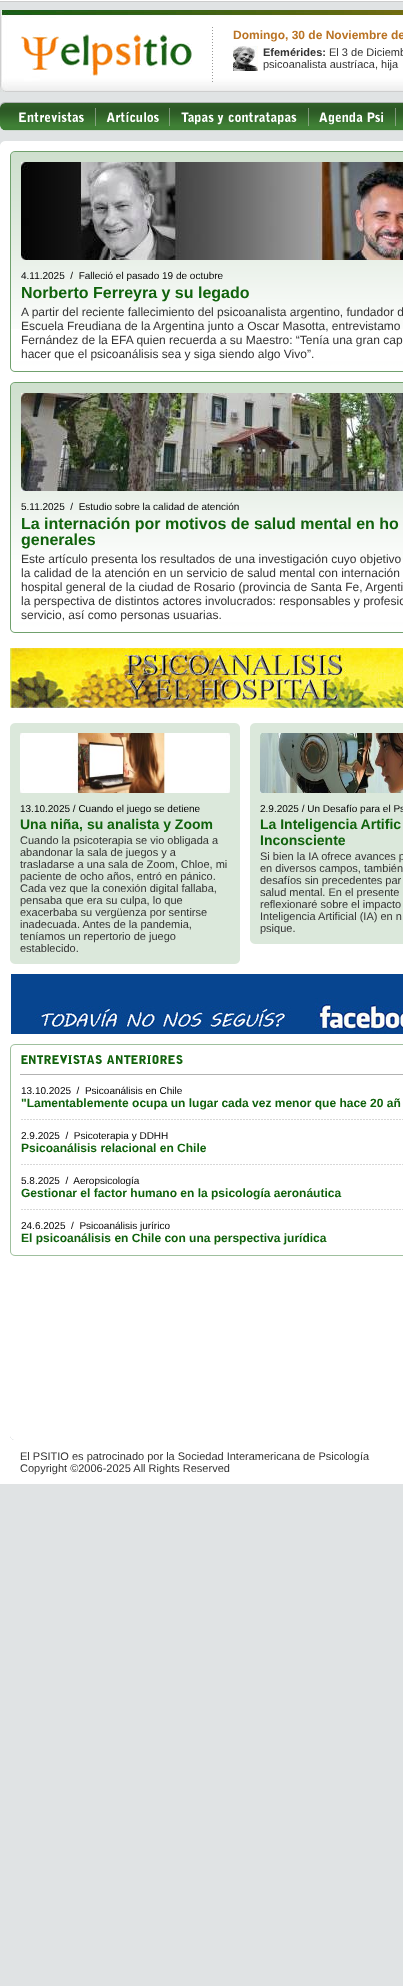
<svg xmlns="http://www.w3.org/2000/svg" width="403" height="1986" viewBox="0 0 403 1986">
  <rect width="100%" height="100%" fill="rgb(224,227,228)"/>
  <image x="0" y="0" width="403" height="2" href="pic1.png"/>
  <image x="0" y="10" width="403" height="82" href="pic2.png"/>
  <image x="212" y="27" width="1" height="55" href="pic3.png"/>
  <image x="20" y="34" width="172" height="42" href="pic4.png"/>
  <text x="233" y="39" font-family="Liberation Sans" font-size="12" font-weight="bold" fill="rgb(186,115,36)">Domingo, 30 de Noviembre de</text>
  <image x="233" y="46" width="25" height="25" href="pic5.png"/>
  <text x="263" y="56" font-family="Liberation Sans" font-size="11" font-weight="bold" fill="rgb(51,51,51)">Efemérides:</text>
  <g font-family="Liberation Sans" font-size="11" fill="rgb(51,51,51)">
    <text x="329" y="56">El 3 de Diciemb</text>
    <text x="263" y="68">psicoanalista austríaca, hija</text>
  </g>
  <image x="0" y="102" width="403" height="29" href="pic6.png"/>
  <image x="0" y="141" width="403" height="10" href="pic7.png"/>
  <rect x="0" y="151" width="403" height="1333" fill="rgb(255,255,255)"/>
  <image x="10" y="151" width="393" height="11" href="pic8.png"/>
  <image x="11" y="162" width="392" height="167" href="pic9.png"/>
  <rect x="10" y="162" width="1" height="199" fill="rgb(112,161,109)"/>
  <image x="21" y="162" width="382" height="98" href="pic10.png"/>
  <text x="21" y="279" font-family="Liberation Sans" font-size="10" fill="rgb(0,0,0)" xml:space="preserve">4.11.2025  /  Falleció el pasado 19 de octubre</text>
  <text x="21" y="298" font-family="Liberation Sans" font-size="16" font-weight="bold" fill="rgb(16,98,12)">Norberto Ferreyra y su legado</text>
  <g font-family="Liberation Sans" font-size="12" fill="rgb(51,51,51)">
    <text>
      <tspan x="21" y="316">A partir del reciente fallecimiento del psicoanalista argentino, fundador d</tspan>
      <tspan x="21" y="330">Escuela Freudiana de la Argentina junto a Oscar Masotta, entrevistamo</tspan>
      <tspan x="21" y="344">Fernández de la EFA quien recuerda a su Maestro: “Tenía una gran cap</tspan>
      <tspan x="21" y="358">hacer que el psicoanálisis sea y siga siendo algo Vivo”.</tspan>
    </text>
  </g>
  <image x="10" y="361" width="393" height="11" href="pic11.png"/>
  <image x="10" y="382" width="393" height="11" href="pic8.png"/>
  <image x="11" y="393" width="392" height="167" href="pic9.png"/>
  <rect x="10" y="393" width="1" height="229" fill="rgb(112,161,109)"/>
  <image x="21" y="393" width="382" height="98" href="pic12.png"/>
  <text x="21" y="510" font-family="Liberation Sans" font-size="10" fill="rgb(0,0,0)" xml:space="preserve">5.11.2025  /  Estudio sobre la calidad de atención</text>
  <g font-family="Liberation Sans" font-size="16" font-weight="bold" fill="rgb(16,98,12)">
    <text>
      <tspan x="21" y="529">La internación por motivos de salud mental en ho</tspan>
      <tspan x="21" y="545">generales</tspan>
    </text>
  </g>
  <g font-family="Liberation Sans" font-size="12" fill="rgb(51,51,51)">
    <text>
      <tspan x="21" y="563">Este artículo presenta los resultados de una investigación cuyo objetivo</tspan>
      <tspan x="21" y="577">la calidad de la atención en un servicio de salud mental con internación</tspan>
      <tspan x="21" y="591">hospital general de la ciudad de Rosario (provincia de Santa Fe, Argenti</tspan>
      <tspan x="21" y="605">la perspectiva de distintos actores involucrados: responsables y profesio</tspan>
      <tspan x="21" y="619">servicio, así como personas usuarias.</tspan>
    </text>
  </g>
  <image x="10" y="622" width="393" height="11" href="pic11.png"/>
  <image x="10" y="648" width="393" height="60" href="pic13.png"/>
  <image x="10" y="723" width="230" height="10" href="pic14.png"/>
  <rect x="10" y="733" width="230" height="221" fill="rgb(219,232,219)"/>
  <image x="20" y="733" width="210" height="60" href="pic15.png"/>
  <text x="20" y="812" font-family="Liberation Sans" font-size="10" fill="rgb(0,0,0)">13.10.2025 / Cuando el juego se detiene</text>
  <text x="20" y="829" font-family="Liberation Sans" font-size="14" font-weight="bold" fill="rgb(16,98,12)">Una niña, su analista y Zoom</text>
  <g font-family="Liberation Sans" font-size="11" fill="rgb(51,51,51)">
    <text>
      <tspan x="20" y="844">Cuando la psicoterapia se vio obligada a</tspan>
      <tspan x="20" y="856">abandonar la sala de juegos y a</tspan>
      <tspan x="20" y="868">trasladarse a una sala de Zoom, Chloe, mi</tspan>
      <tspan x="20" y="880">paciente de ocho años, entró en pánico.</tspan>
      <tspan x="20" y="892">Cada vez que la conexión digital fallaba,</tspan>
      <tspan x="20" y="904">pensaba que era su culpa, lo que</tspan>
      <tspan x="20" y="916">exacerbaba su vergüenza por sentirse</tspan>
      <tspan x="20" y="928">inadecuada. Antes de la pandemia,</tspan>
      <tspan x="20" y="940">teníamos un repertorio de juego</tspan>
      <tspan x="20" y="952">establecido.</tspan>
    </text>
  </g>
  <image x="10" y="954" width="230" height="10" href="pic16.png"/>
  <image x="250" y="723" width="153" height="10" href="pic17.png"/>
  <rect x="250" y="733" width="153" height="201" fill="rgb(219,232,219)"/>
  <image x="260" y="733" width="143" height="60" href="pic18.png"/>
  <text x="260" y="812" font-family="Liberation Sans" font-size="10" fill="rgb(0,0,0)">2.9.2025 / Un Desafío para el Ps</text>
  <g font-family="Liberation Sans" font-size="14" font-weight="bold" fill="rgb(16,98,12)">
    <text>
      <tspan x="260" y="829">La Inteligencia Artific</tspan>
      <tspan x="260" y="845">Inconsciente</tspan>
    </text>
  </g>
  <g font-family="Liberation Sans" font-size="11" fill="rgb(51,51,51)">
    <text>
      <tspan x="260" y="860">Si bien la IA ofrece avances p</tspan>
      <tspan x="260" y="872">en diversos campos, también</tspan>
      <tspan x="260" y="884">desafíos sin precedentes par</tspan>
      <tspan x="260" y="896">salud mental. En el presente</tspan>
      <tspan x="260" y="908">reflexionaré sobre el impacto</tspan>
      <tspan x="260" y="920">Inteligencia Artificial (IA) en n</tspan>
      <tspan x="260" y="932">psique.</tspan>
    </text>
  </g>
  <image x="250" y="934" width="153" height="10" href="pic19.png"/>
  <image x="11" y="974" width="392" height="60" href="pic20.png"/>
  <image x="10" y="1044" width="393" height="31" href="pic21.png"/>
  <rect x="10" y="1075" width="1" height="170" fill="rgb(159,192,158)"/>
  <image x="21" y="1119" width="382" height="1" href="pic22.png"/>
  <text x="21" y="1094" font-family="Liberation Sans" font-size="10" fill="rgb(0,0,0)" xml:space="preserve">13.10.2025  /  Psicoanálisis en Chile</text>
  <text x="21" y="1107" font-family="Liberation Sans" font-size="12" font-weight="bold" fill="rgb(16,98,12)">"Lamentablemente ocupa un lugar cada vez menor que hace 20 añ</text>
  <image x="21" y="1164" width="382" height="1" href="pic22.png"/>
  <text x="21" y="1139" font-family="Liberation Sans" font-size="10" fill="rgb(0,0,0)" xml:space="preserve">2.9.2025  /  Psicoterapia y DDHH</text>
  <text x="21" y="1152" font-family="Liberation Sans" font-size="12" font-weight="bold" fill="rgb(16,98,12)">Psicoanálisis relacional en Chile</text>
  <image x="21" y="1209" width="382" height="1" href="pic22.png"/>
  <text x="21" y="1184" font-family="Liberation Sans" font-size="10" fill="rgb(0,0,0)" xml:space="preserve">5.8.2025  /  Aeropsicología</text>
  <text x="21" y="1197" font-family="Liberation Sans" font-size="12" font-weight="bold" fill="rgb(16,98,12)">Gestionar el factor humano en la psicología aeronáutica</text>
  <text x="21" y="1229" font-family="Liberation Sans" font-size="10" fill="rgb(0,0,0)" xml:space="preserve">24.6.2025  /  Psicoanálisis jurírico</text>
  <text x="21" y="1242" font-family="Liberation Sans" font-size="12" font-weight="bold" fill="rgb(16,98,12)">El psicoanálisis en Chile con una perspectiva jurídica</text>
  <image x="10" y="1245" width="393" height="11" href="pic23.png"/>
  <image x="10" y="1436" width="4" height="4" href="pic24.png"/>
  <g font-family="Liberation Sans" font-size="11" fill="rgb(51,51,51)">
    <text>
      <tspan x="20" y="1460">El PSITIO es patrocinado por la Sociedad Interamericana de Psicología</tspan>
      <tspan x="20" y="1472">Copyright ©2006-2025 All Rights Reserved</tspan>
    </text>
  </g>
</svg>
